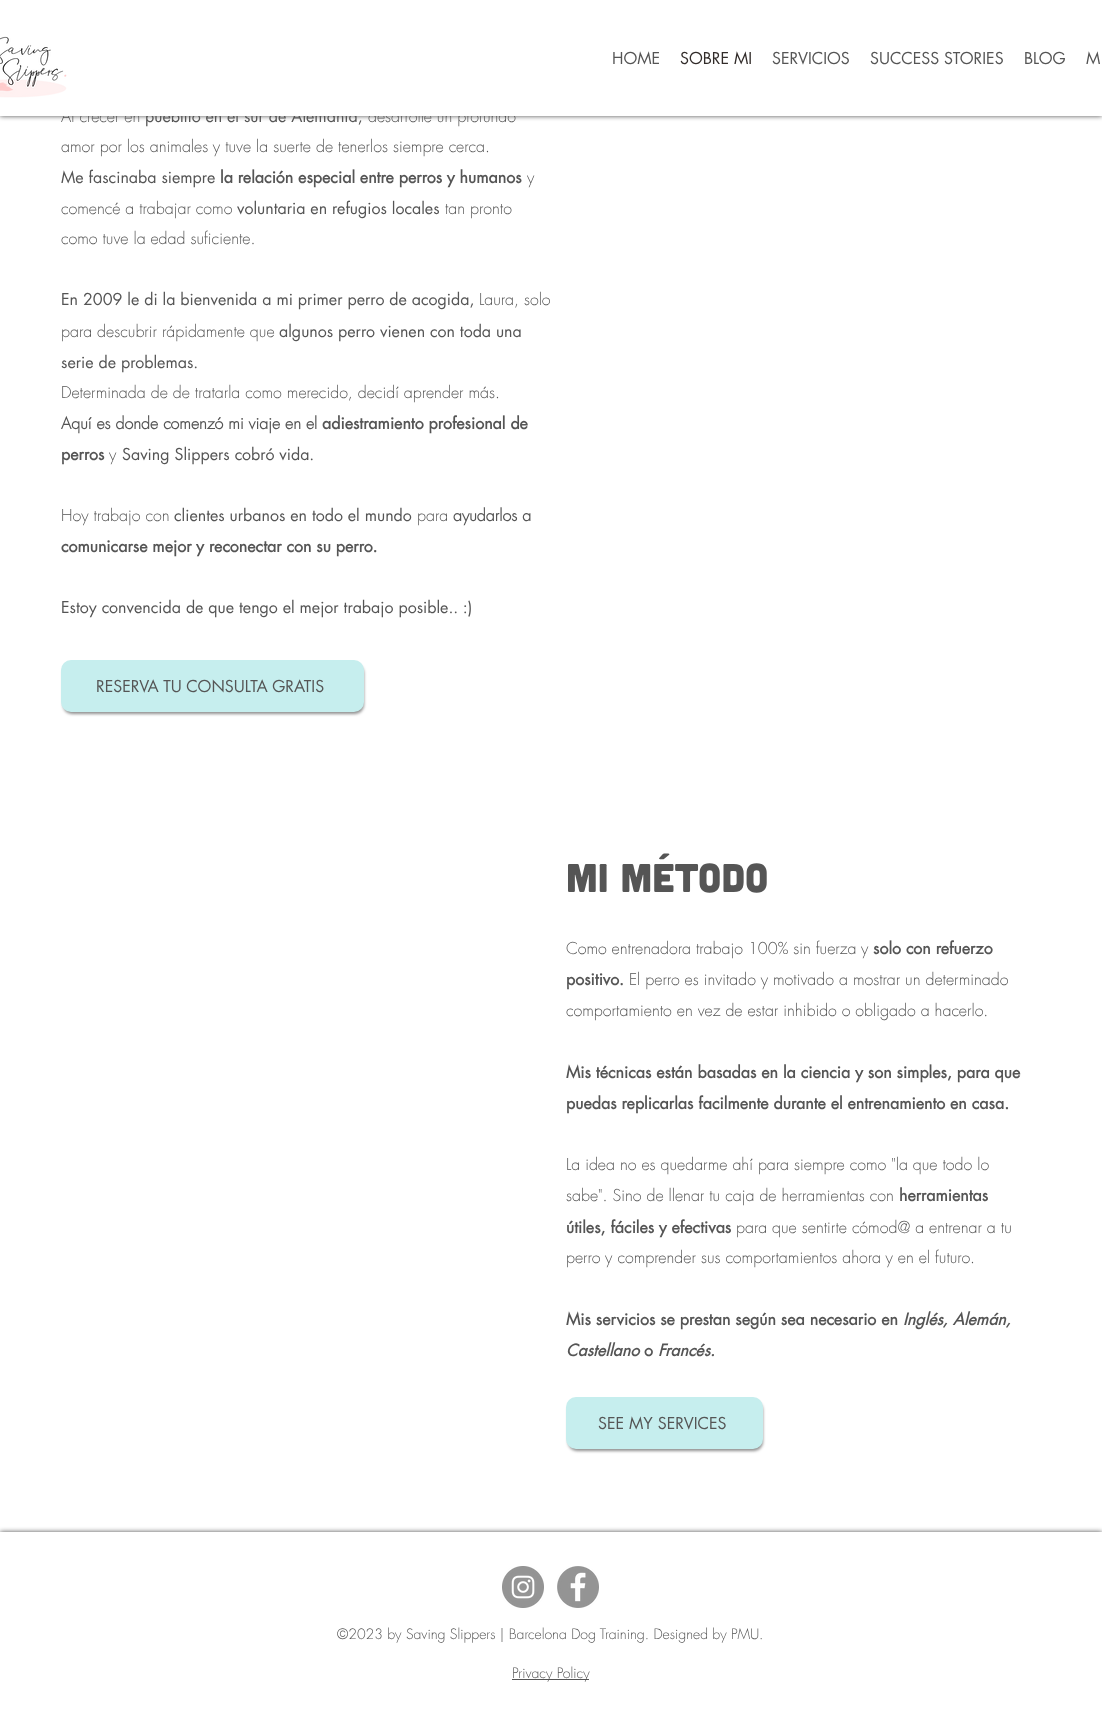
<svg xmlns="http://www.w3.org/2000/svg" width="1102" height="1720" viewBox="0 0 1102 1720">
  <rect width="100%" height="100%" fill="rgb(255,255,255)"/>
  <rect x="0" y="0" width="1102" height="116" fill="rgba(0,0,0,0.7)" filter="blur(2.5px)"/>
  <text x="61" y="122" font-family="futura" font-size="16" font-weight="300" fill="rgb(85,85,85)">Al crecer en</text>
  <text x="145" y="122" font-family="futura" font-size="16" fill="rgb(85,85,85)">pueblito en el sur de Alemania,</text>
  <text x="368" y="122" font-family="futura" font-size="16" font-weight="300" fill="rgb(85,85,85)">desarrollé un profundo</text>
  <rect x="0" y="0" width="1102" height="116" fill="rgb(255,255,255)"/>
  <image x="0" y="36" width="67" height="62" href="pic1.png"/>
  <text x="612" y="64" font-family="futura" font-size="16" fill="rgb(85,85,85)">HOME</text>
  <text x="680" y="64" font-family="futura" font-size="16" fill="rgb(50,44,42)">SOBRE MI</text>
  <g font-family="futura" font-size="16" fill="rgb(85,85,85)">
    <text x="772" y="64">SERVICIOS</text>
    <text x="870" y="64">SUCCESS STORIES</text>
    <text x="1024" y="64">BLOG</text>
    <text x="1086" y="64">M</text>
  </g>
  <text x="61" y="152" font-family="futura" font-size="16" font-weight="300" fill="rgb(85,85,85)">amor por los animales y tuve la suerte de tenerlos siempre cerca.</text>
  <text x="61" y="183" font-family="futura" font-size="16" fill="rgb(85,85,85)">Me fascinaba siempre</text>
  <text x="220" y="183" font-family="futura" font-size="16" font-weight="bold" fill="rgb(85,85,85)">la relación especial entre perros y humanos</text>
  <g font-family="futura" font-size="16" font-weight="300" fill="rgb(85,85,85)">
    <text x="527" y="183">y</text>
    <text x="61" y="214">comencé a trabajar como</text>
  </g>
  <text x="237" y="214" font-family="futura" font-size="16" fill="rgb(85,85,85)">voluntaria en refugios locales</text>
  <g font-family="futura" font-size="16" font-weight="300" fill="rgb(85,85,85)">
    <text x="445" y="214">tan pronto</text>
    <text x="61" y="244">como tuve la edad suficiente.</text>
  </g>
  <text x="61" y="305" font-family="futura" font-size="16" fill="rgb(85,85,85)">En 2009 le di la bienvenida a mi primer perro de acogida,</text>
  <g font-family="futura" font-size="16" font-weight="300" fill="rgb(85,85,85)">
    <text x="479" y="305">Laura, solo</text>
    <text x="61" y="337">para descubrir rápidamente que</text>
  </g>
  <g font-family="futura" font-size="16" fill="rgb(85,85,85)">
    <text x="279" y="337">algunos perro vienen con toda una</text>
    <text x="61" y="368">serie de problemas.</text>
  </g>
  <text x="61" y="398" font-family="futura" font-size="16" font-weight="300" fill="rgb(85,85,85)">Determinada de de tratarla como merecido, decidí aprender más.</text>
  <text x="61" y="429" font-family="'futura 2'" font-size="16" font-weight="bold" fill="rgb(85,85,85)">Aquí es donde comenzó mi viaje en el</text>
  <g font-family="futura" font-size="16" font-weight="bold" fill="rgb(85,85,85)">
    <text x="322" y="429">adiestramiento profesional de</text>
    <text x="61" y="460">perros</text>
  </g>
  <text x="109" y="460" font-family="futura" font-size="16" font-weight="300" fill="rgb(85,85,85)">y</text>
  <text x="122" y="460" font-family="futura" font-size="16" fill="rgb(85,85,85)">Saving Slippers cobró vida.</text>
  <text x="61" y="521" font-family="futura" font-size="16" font-weight="300" fill="rgb(85,85,85)">Hoy trabajo con</text>
  <text x="174" y="521" font-family="futura" font-size="16" fill="rgb(85,85,85)">clientes urbanos en todo el mundo</text>
  <text x="417" y="521" font-family="futura" font-size="16" font-weight="300" fill="rgb(85,85,85)">para</text>
  <text x="453" y="521" font-family="'futura 2'" font-size="16" font-weight="bold" fill="rgb(85,85,85)">ayudarlos a</text>
  <text x="61" y="552" font-family="futura" font-size="16" font-weight="bold" fill="rgb(85,85,85)">comunicarse mejor y reconectar con su perro.</text>
  <text x="61" y="613" font-family="futura" font-size="16" fill="rgb(85,85,85)">Estoy convencida de que tengo el mejor trabajo posible.. :)</text>
  <rect x="63" y="664" width="301" height="50" rx="9" fill="rgba(0,0,0,0.44)" filter="blur(1.5px)"/>
  <rect x="61" y="660" width="303" height="52" rx="10" fill="rgb(198,238,238)"/>
  <text x="96" y="692" font-family="futura" font-size="16" fill="rgb(85,85,85)">RESERVA TU CONSULTA GRATIS</text>
  <text x="566" y="892" font-family="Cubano" font-size="40" fill="rgb(85,85,85)">Mi Método</text>
  <text x="566" y="954" font-family="futura" font-size="16" font-weight="300" fill="rgb(85,85,85)">Como entrenadora trabajo 100% sin fuerza y</text>
  <g font-family="futura" font-size="16" font-weight="bold" fill="rgb(85,85,85)">
    <text x="873" y="954">solo con refuerzo</text>
    <text x="566" y="985">positivo.</text>
  </g>
  <g font-family="futura" font-size="16" font-weight="300" fill="rgb(85,85,85)">
    <text x="629" y="985">El perro es invitado y motivado a mostrar un determinado</text>
    <text x="566" y="1016">comportamiento en vez de estar inhibido o obligado a hacerlo.</text>
  </g>
  <g font-family="futura" font-size="16" font-weight="bold" fill="rgb(85,85,85)">
    <text>
      <tspan x="566" y="1078">Mis técnicas están basadas en la ciencia y son simples, para que</tspan>
      <tspan x="566" y="1109">puedas replicarlas facilmente durante el entrenamiento en casa.</tspan>
    </text>
  </g>
  <g font-family="futura" font-size="16" font-weight="300" fill="rgb(85,85,85)">
    <text>
      <tspan x="566" y="1170">La idea no es quedarme ahí para siempre como "la que todo lo</tspan>
      <tspan x="566" y="1201">sabe". Sino de llenar tu caja de herramientas con</tspan>
    </text>
  </g>
  <g font-family="futura" font-size="16" font-weight="bold" fill="rgb(85,85,85)">
    <text x="899" y="1201">herramientas</text>
    <text x="566" y="1233">útiles, fáciles y efectivas</text>
  </g>
  <g font-family="futura" font-size="16" font-weight="300" fill="rgb(85,85,85)">
    <text x="736" y="1233">para que sentirte cómod@ a entrenar a tu</text>
    <text x="566" y="1263">perro y comprender sus comportamientos ahora y en el futuro.</text>
  </g>
  <text x="566" y="1325" font-family="futura" font-size="16" font-weight="bold" fill="rgb(85,85,85)">Mis servicios se prestan según sea necesario en</text>
  <g font-family="futura" font-size="16" font-weight="bold" font-style="italic" fill="rgb(85,85,85)">
    <text x="903" y="1325">Inglés, Alemán,</text>
    <text x="566" y="1356">Castellano</text>
  </g>
  <text x="644" y="1356" font-family="futura" font-size="16" font-weight="bold" fill="rgb(85,85,85)">o</text>
  <text x="658" y="1356" font-family="futura" font-size="16" font-weight="bold" font-style="italic" fill="rgb(85,85,85)">Francés.</text>
  <rect x="568" y="1401" width="195" height="50" rx="9" fill="rgba(0,0,0,0.44)" filter="blur(1.5px)"/>
  <rect x="566" y="1397" width="197" height="52" rx="10" fill="rgb(198,238,238)"/>
  <text x="598" y="1429" font-family="futura" font-size="16" fill="rgb(85,85,85)">SEE MY SERVICES</text>
  <rect x="0" y="1532" width="1102" height="188" fill="rgba(0,0,0,0.7)" filter="blur(2.5px)"/>
  <rect x="0" y="1532" width="1102" height="188" fill="rgb(255,255,255)"/>
  <image x="502" y="1566" width="42" height="42" href="pic2.png"/>
  <image x="557" y="1566" width="42" height="42" href="pic3.png"/>
  <text x="337" y="1639" font-family="futura" font-size="14" font-weight="300" fill="rgb(85,85,85)">©2023 by Saving Slippers | Barcelona Dog Training. Designed by PMU.</text>
  <rect x="512" y="1679" width="77" height="1" fill="rgb(85,85,85)"/>
  <text x="512" y="1678" font-family="futura" font-size="14" font-weight="300" fill="rgb(85,85,85)">Privacy Policy</text>
</svg>
